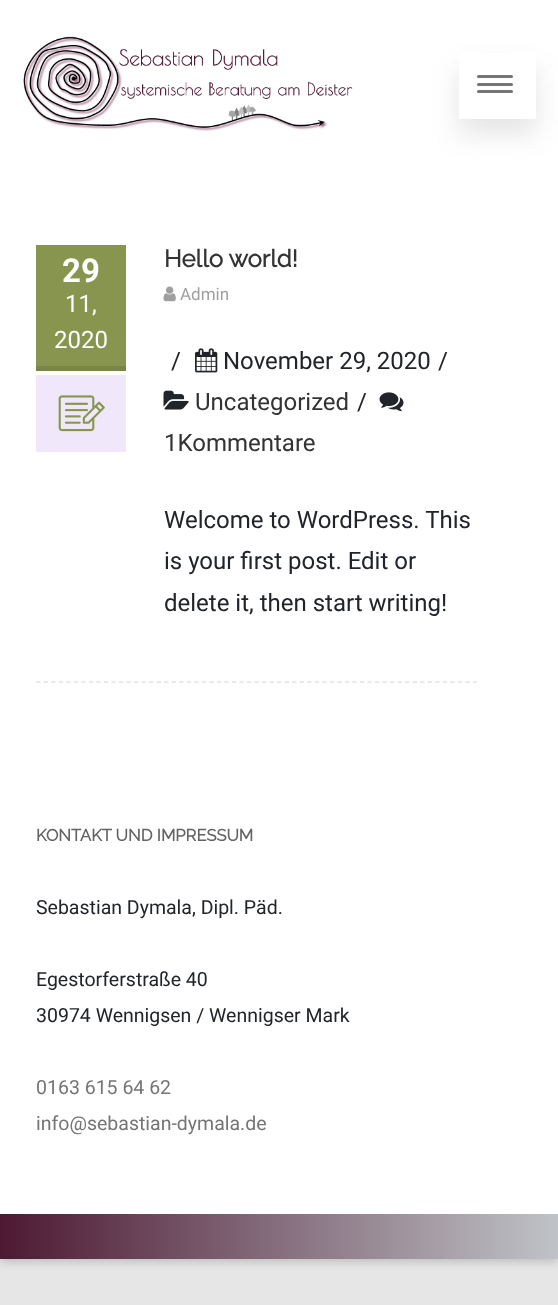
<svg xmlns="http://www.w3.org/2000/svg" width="558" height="1305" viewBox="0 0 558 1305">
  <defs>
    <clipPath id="clip1"><path d="M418 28H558V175H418ZM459 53H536V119H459Z" clip-rule="evenodd"/></clipPath>
    <linearGradient id="g1" gradientUnits="userSpaceOnUse" x1="0" y1="1236" x2="558" y2="1236"><stop offset="0" stop-color="rgb(77,25,51)"/><stop offset="1" stop-color="rgb(191,195,199)"/></linearGradient>
  </defs>
  <rect width="100%" height="100%" fill="rgb(230,230,230)"/>
  <rect x="0" y="3" width="558" height="1259" fill="rgba(100,100,100,0.3)" filter="blur(4.5px)"/>
  <rect x="0" y="0" width="558" height="1214" fill="rgb(255,255,255)"/>
  <image x="23" y="36" width="330" height="95" href="pic1.png"/>
  <g clip-path="url(#clip1)">
    <rect x="458" y="68" width="79" height="67" fill="rgba(64,64,64,0.13)" filter="blur(13px)"/>
  </g>
  <rect x="477" y="75" width="36" height="3" rx="1.5" fill="rgb(117,117,117)"/>
  <rect x="477" y="83" width="36" height="3" rx="1.5" fill="rgb(117,117,117)"/>
  <rect x="477" y="90" width="36" height="3" rx="1.5" fill="rgb(117,117,117)"/>
  <path d="M36 682H477" fill="none" stroke="rgb(227,227,227)" stroke-width="1.5" stroke-dasharray="4.5 3.03"/>
  <rect x="36" y="245" width="90" height="121" fill="rgb(135,149,79)"/>
  <rect x="36" y="366" width="90" height="5" fill="rgb(122,134,71)"/>
  <text x="62" y="282" font-family="Roboto" font-size="33" font-weight="bold" fill="rgb(255,255,255)">29</text>
  <g font-family="Roboto" font-size="24" fill="rgb(255,255,255)">
    <text x="65" y="312">11,</text>
    <text x="54" y="348">2020</text>
  </g>
  <rect x="36" y="375" width="90" height="77" fill="rgb(240,231,250)"/>
  <image x="58" y="395" width="47" height="37" href="pic2.png"/>
  <text x="164" y="267" font-family="Raleway" font-size="24" font-weight="bold" fill="rgb(51,51,51)">Hello world!</text>
  <image x="163" y="286" width="13" height="16" href="pic3.png"/>
  <text x="180" y="300" font-family="Roboto" font-size="17" fill="rgb(159,159,159)">Admin</text>
  <text x="171" y="369" font-family="Roboto" font-size="24" fill="rgb(33,37,41)">/</text>
  <image x="195" y="348" width="23" height="25" href="pic4.png"/>
  <g font-family="Roboto" font-size="24" fill="rgb(33,37,41)">
    <text x="223" y="369">November 29, 2020</text>
    <text x="438" y="369">/</text>
  </g>
  <image x="163" y="390" width="26" height="20" href="pic5.png"/>
  <text x="195" y="410" font-family="Roboto" font-size="24" fill="rgb(51,51,51)">Uncategorized</text>
  <text x="357" y="410" font-family="Roboto" font-size="24" fill="rgb(33,37,41)">/</text>
  <image x="379" y="392" width="25" height="20" href="pic6.png"/>
  <text x="164" y="451" font-family="Roboto" font-size="24" fill="rgb(51,51,51)">1Kommentare</text>
  <g font-family="Roboto" font-size="24" fill="rgb(33,37,41)">
    <text>
      <tspan x="164" y="528">Welcome to WordPress. This</tspan>
      <tspan x="164" y="569">is your first post. Edit or</tspan>
      <tspan x="164" y="611">delete it, then start writing!</tspan>
    </text>
  </g>
  <text x="36" y="841" font-family="Raleway" font-size="16.5" font-weight="bold" fill="rgb(99,99,99)">KONTAKT UND IMPRESSUM</text>
  <g font-family="Roboto" font-size="19.5" fill="rgb(33,37,41)">
    <text x="36" y="914">Sebastian Dymala, Dipl. Päd.</text>
    <text>
      <tspan x="36" y="986">Egestorferstraße 40</tspan>
      <tspan x="36" y="1022">30974 Wennigsen / Wennigser Mark</tspan>
    </text>
  </g>
  <g font-family="Roboto" font-size="19.5" fill="rgb(117,117,117)">
    <text>
      <tspan x="36" y="1094">0163 615 64 62</tspan>
      <tspan x="36" y="1130">info@sebastian-dymala.de</tspan>
    </text>
  </g>
  <rect x="0" y="1214" width="558" height="45" fill="url(#g1)"/>
</svg>
